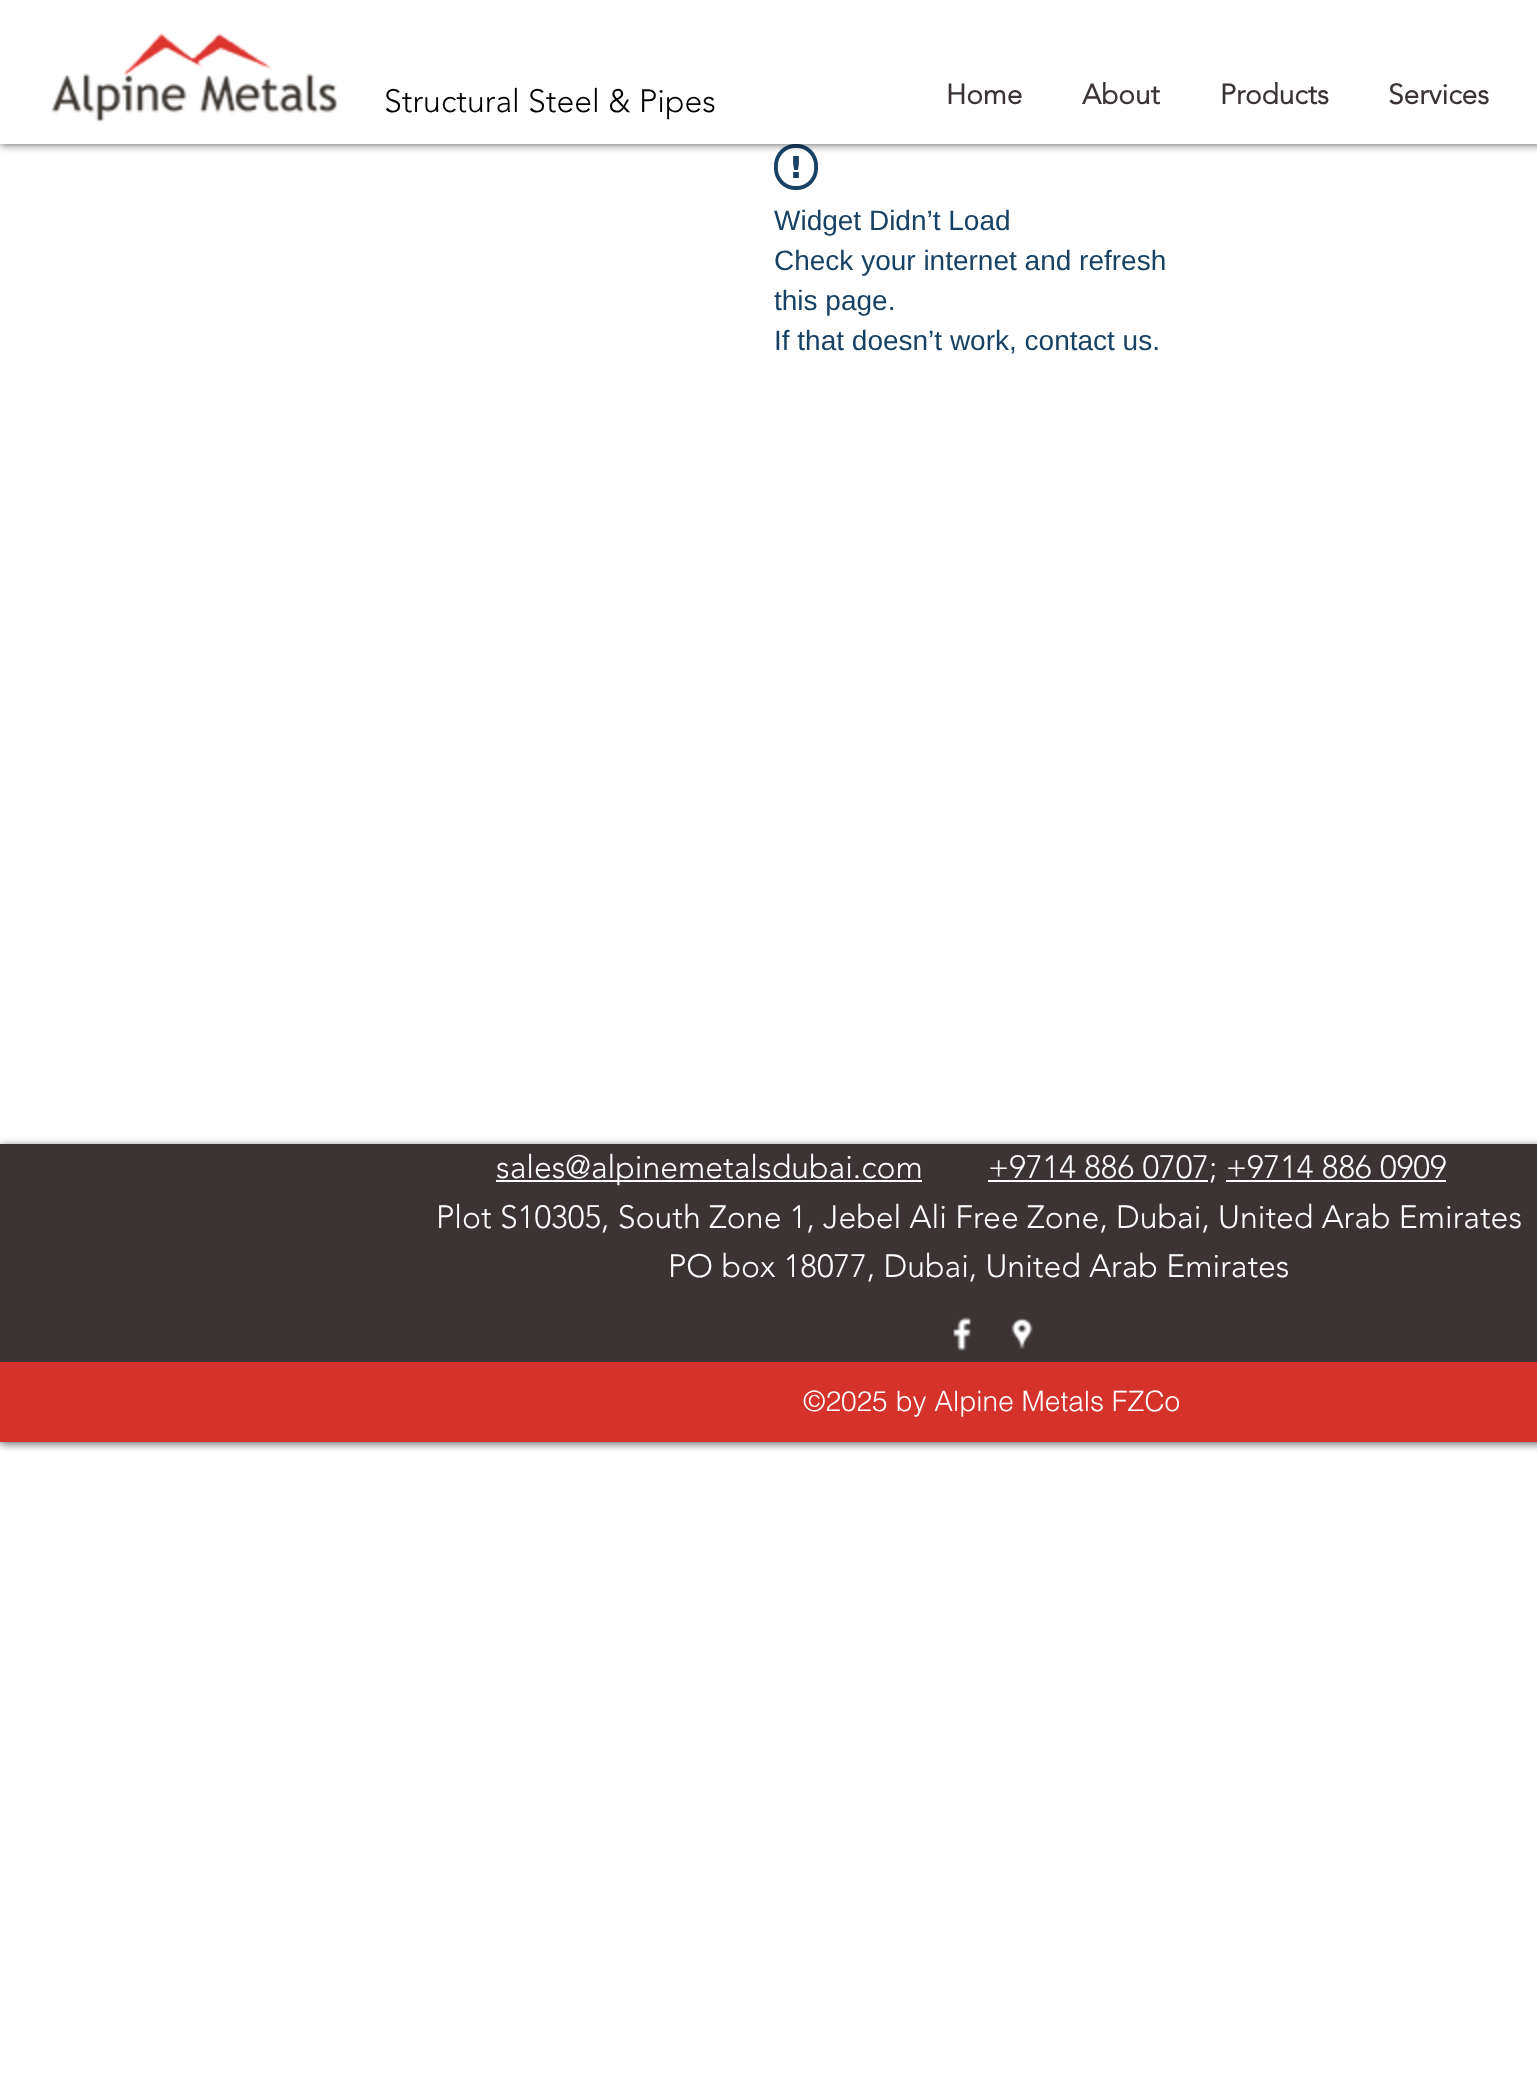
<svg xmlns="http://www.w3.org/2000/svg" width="1537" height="2100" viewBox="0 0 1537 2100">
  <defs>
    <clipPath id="clip1"><rect x="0" y="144" width="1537" height="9"/></clipPath>
  </defs>
  <rect width="100%" height="100%" fill="rgb(255,255,255)"/>
  <image x="774" y="144" width="44" height="46" href="pic2.png"/>
  <g clip-path="url(#clip1)">
    <rect x="0" y="0" width="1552" height="144" fill="rgba(0,0,0,0.7)" filter="blur(5px)"/>
  </g>
  <image x="51" y="33" width="287" height="90" href="pic1.png"/>
  <text x="384" y="112" font-family="'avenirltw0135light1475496'" font-size="32" font-weight="300" fill="rgb(0,0,0)">Structural Steel &amp; Pipes</text>
  <g font-family="'avenirltw0135light1475496'" font-size="28" font-weight="bold" fill="rgb(60,52,52)">
    <text x="946" y="104">Home</text>
    <text x="1082" y="104">About</text>
    <text x="1220" y="104">Products</text>
    <text x="1388" y="104">Services</text>
  </g>
  <g font-family="Liberation Sans" font-size="28" fill="rgb(23,65,101)">
    <text>
      <tspan x="774" y="230">Widget Didn’t Load</tspan>
      <tspan x="774" y="270">Check your internet and refresh</tspan>
      <tspan x="774" y="310">this page.</tspan>
      <tspan x="774" y="350">If that doesn’t work, contact us.</tspan>
    </text>
  </g>
  <rect x="0" y="1146" width="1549" height="298" fill="rgba(0,0,0,0.6)" filter="blur(4px)"/>
  <rect x="0" y="1144" width="1537" height="218" fill="rgb(60,52,52)"/>
  <rect x="496" y="1180" width="426" height="2" fill="rgb(255,255,255)"/>
  <text x="496" y="1178" font-family="'avenirltw0135light1475496'" font-size="32" font-weight="300" fill="rgb(255,255,255)">sales@alpinemetalsdubai.com</text>
  <rect x="988" y="1180" width="220" height="2" fill="rgb(255,255,255)"/>
  <text x="988" y="1178" font-family="'avenirltw0135light1475496'" font-size="32" font-weight="300" fill="rgb(255,255,255)">+9714 886 0707; +9714 886 0909</text>
  <rect x="1226" y="1180" width="220" height="2" fill="rgb(255,255,255)"/>
  <g font-family="'avenirltw0135light1475496'" font-size="32" font-weight="300" fill="rgb(255,255,255)">
    <text x="436" y="1228">Plot S10305, South Zone 1, Jebel Ali Free Zone, Dubai, United Arab Emirates</text>
    <text x="668" y="1277">PO box 18077, Dubai, United Arab Emirates</text>
  </g>
  <image x="953" y="1317" width="19" height="34" href="pic3.png"/>
  <image x="1011" y="1317" width="22" height="32" href="pic4.png"/>
  <rect x="0" y="1362" width="1537" height="80" fill="rgb(212,50,43)"/>
  <text x="803" y="1411" font-family="helvetica" font-size="28" font-weight="300" fill="rgb(255,255,255)">©2025 by Alpine Metals FZCo</text>
</svg>
